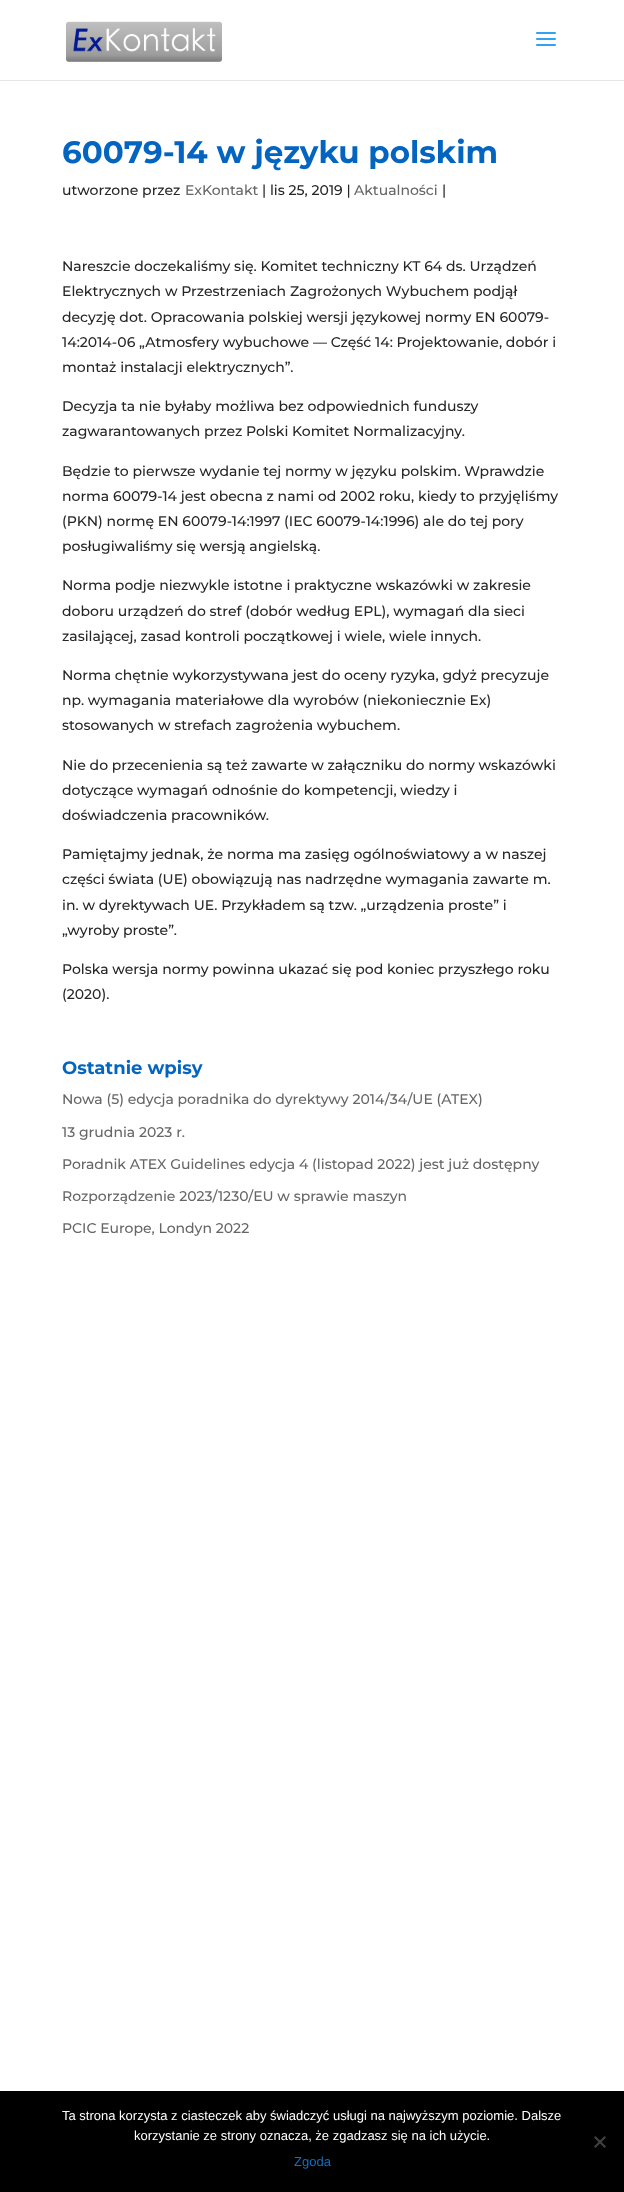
<svg xmlns="http://www.w3.org/2000/svg" width="624" height="2192" viewBox="0 0 624 2192">
  <rect width="100%" height="100%" fill="rgb(255,255,255)"/>
  <rect x="0" y="80" width="624" height="1" fill="rgb(230,230,230)"/>
  <image x="66" y="21" width="156" height="41" href="pic1.png"/>
  <image x="536" y="32" width="20" height="14" href="pic2.png"/>
  <text x="62" y="163" font-family="Montserrat" font-size="31" font-weight="bold" fill="rgb(3,101,192)">60079-14 w języku polskim</text>
  <text x="62" y="195" font-family="Montserrat" font-size="14" font-weight="500" fill="rgb(38,38,38)">utworzone przez</text>
  <text x="185" y="195" font-family="Montserrat" font-size="14" font-weight="500" fill="rgb(102,102,102)">ExKontakt</text>
  <text x="262" y="195" font-family="Montserrat" font-size="14" font-weight="500" fill="rgb(38,38,38)">| lis 25, 2019 |</text>
  <text x="354" y="195" font-family="Montserrat" font-size="14" font-weight="500" fill="rgb(102,102,102)">Aktualności</text>
  <g font-family="Montserrat" font-size="14" font-weight="500" fill="rgb(38,38,38)">
    <text x="442" y="195">|</text>
    <text>
      <tspan x="62" y="271">Nareszcie doczekaliśmy się. Komitet techniczny KT 64 ds. Urządzeń</tspan>
      <tspan x="62" y="296">Elektrycznych w Przestrzeniach Zagrożonych Wybuchem podjął</tspan>
      <tspan x="62" y="322">decyzję dot. Opracowania polskiej wersji językowej normy EN 60079-</tspan>
      <tspan x="62" y="347">14:2014-06 „Atmosfery wybuchowe — Część 14: Projektowanie, dobór i</tspan>
      <tspan x="62" y="372">montaż instalacji elektrycznych”.</tspan>
    </text>
    <text>
      <tspan x="62" y="411">Decyzja ta nie byłaby możliwa bez odpowiednich funduszy</tspan>
      <tspan x="62" y="436">zagwarantowanych przez Polski Komitet Normalizacyjny.</tspan>
    </text>
    <text>
      <tspan x="62" y="476">Będzie to pierwsze wydanie tej normy w języku polskim. Wprawdzie</tspan>
      <tspan x="62" y="501">norma 60079-14 jest obecna z nami od 2002 roku, kiedy to przyjęliśmy</tspan>
      <tspan x="62" y="526">(PKN) normę EN 60079-14:1997 (IEC 60079-14:1996) ale do tej pory</tspan>
      <tspan x="62" y="551">posługiwaliśmy się wersją angielską.</tspan>
    </text>
    <text>
      <tspan x="62" y="590">Norma podje niezwykle istotne i praktyczne wskazówki w zakresie</tspan>
      <tspan x="62" y="616">doboru urządzeń do stref (dobór według EPL), wymagań dla sieci</tspan>
      <tspan x="62" y="641">zasilającej, zasad kontroli początkowej i wiele, wiele innych.</tspan>
    </text>
    <text>
      <tspan x="62" y="680">Norma chętnie wykorzystywana jest do oceny ryzyka, gdyż precyzuje</tspan>
      <tspan x="62" y="705">np. wymagania materiałowe dla wyrobów (niekoniecznie Ex)</tspan>
      <tspan x="62" y="730">stosowanych w strefach zagrożenia wybuchem.</tspan>
    </text>
    <text>
      <tspan x="62" y="770">Nie do przecenienia są też zawarte w załączniku do normy wskazówki</tspan>
      <tspan x="62" y="795">dotyczące wymagań odnośnie do kompetencji, wiedzy i</tspan>
      <tspan x="62" y="820">doświadczenia pracowników.</tspan>
    </text>
    <text>
      <tspan x="62" y="859">Pamiętajmy jednak, że norma ma zasięg ogólnoświatowy a w naszej</tspan>
      <tspan x="62" y="884">części świata (UE) obowiązują nas nadrzędne wymagania zawarte m.</tspan>
      <tspan x="62" y="910">in. w dyrektywach UE. Przykładem są tzw. „urządzenia proste” i</tspan>
      <tspan x="62" y="935">„wyroby proste”.</tspan>
    </text>
    <text>
      <tspan x="62" y="974">Polska wersja normy powinna ukazać się pod koniec przyszłego roku</tspan>
      <tspan x="62" y="999">(2020).</tspan>
    </text>
  </g>
  <text x="62" y="1074" font-family="Montserrat" font-size="18" font-weight="bold" fill="rgb(3,101,192)">Ostatnie wpisy</text>
  <g font-family="Montserrat" font-size="14" font-weight="500" fill="rgb(102,102,102)">
    <text x="62" y="1104">Nowa (5) edycja poradnika do dyrektywy 2014/34/UE (ATEX)</text>
    <text x="62" y="1137">13 grudnia 2023 r.</text>
    <text x="62" y="1169">Poradnik ATEX Guidelines edycja 4 (listopad 2022) jest już dostępny</text>
    <text x="62" y="1201">Rozporządzenie 2023/1230/EU w sprawie maszyn</text>
    <text x="62" y="1233">PCIC Europe, Londyn 2022</text>
  </g>
  <rect x="0" y="2091" width="624" height="101" fill="rgb(0,0,0)"/>
  <g font-family="Liberation Sans" font-size="13" fill="rgb(255,255,255)">
    <text x="62" y="2120">Ta strona korzysta z ciasteczek aby świadczyć usługi na najwyższym poziomie. Dalsze</text>
    <text x="134" y="2140">korzystanie ze strony oznacza, że zgadzasz się na ich użycie.</text>
  </g>
  <path d="M604.5 2136L606 2137.5L595.5 2148L594 2146.5Z" fill="rgb(64,64,64)"/>
  <path d="M594 2137.5L595.5 2136L606 2146.5L604.5 2148Z" fill="rgb(64,64,64)"/>
  <text x="294" y="2166" font-family="Liberation Sans" font-size="13" fill="rgb(12,113,195)">Zgoda</text>
</svg>
